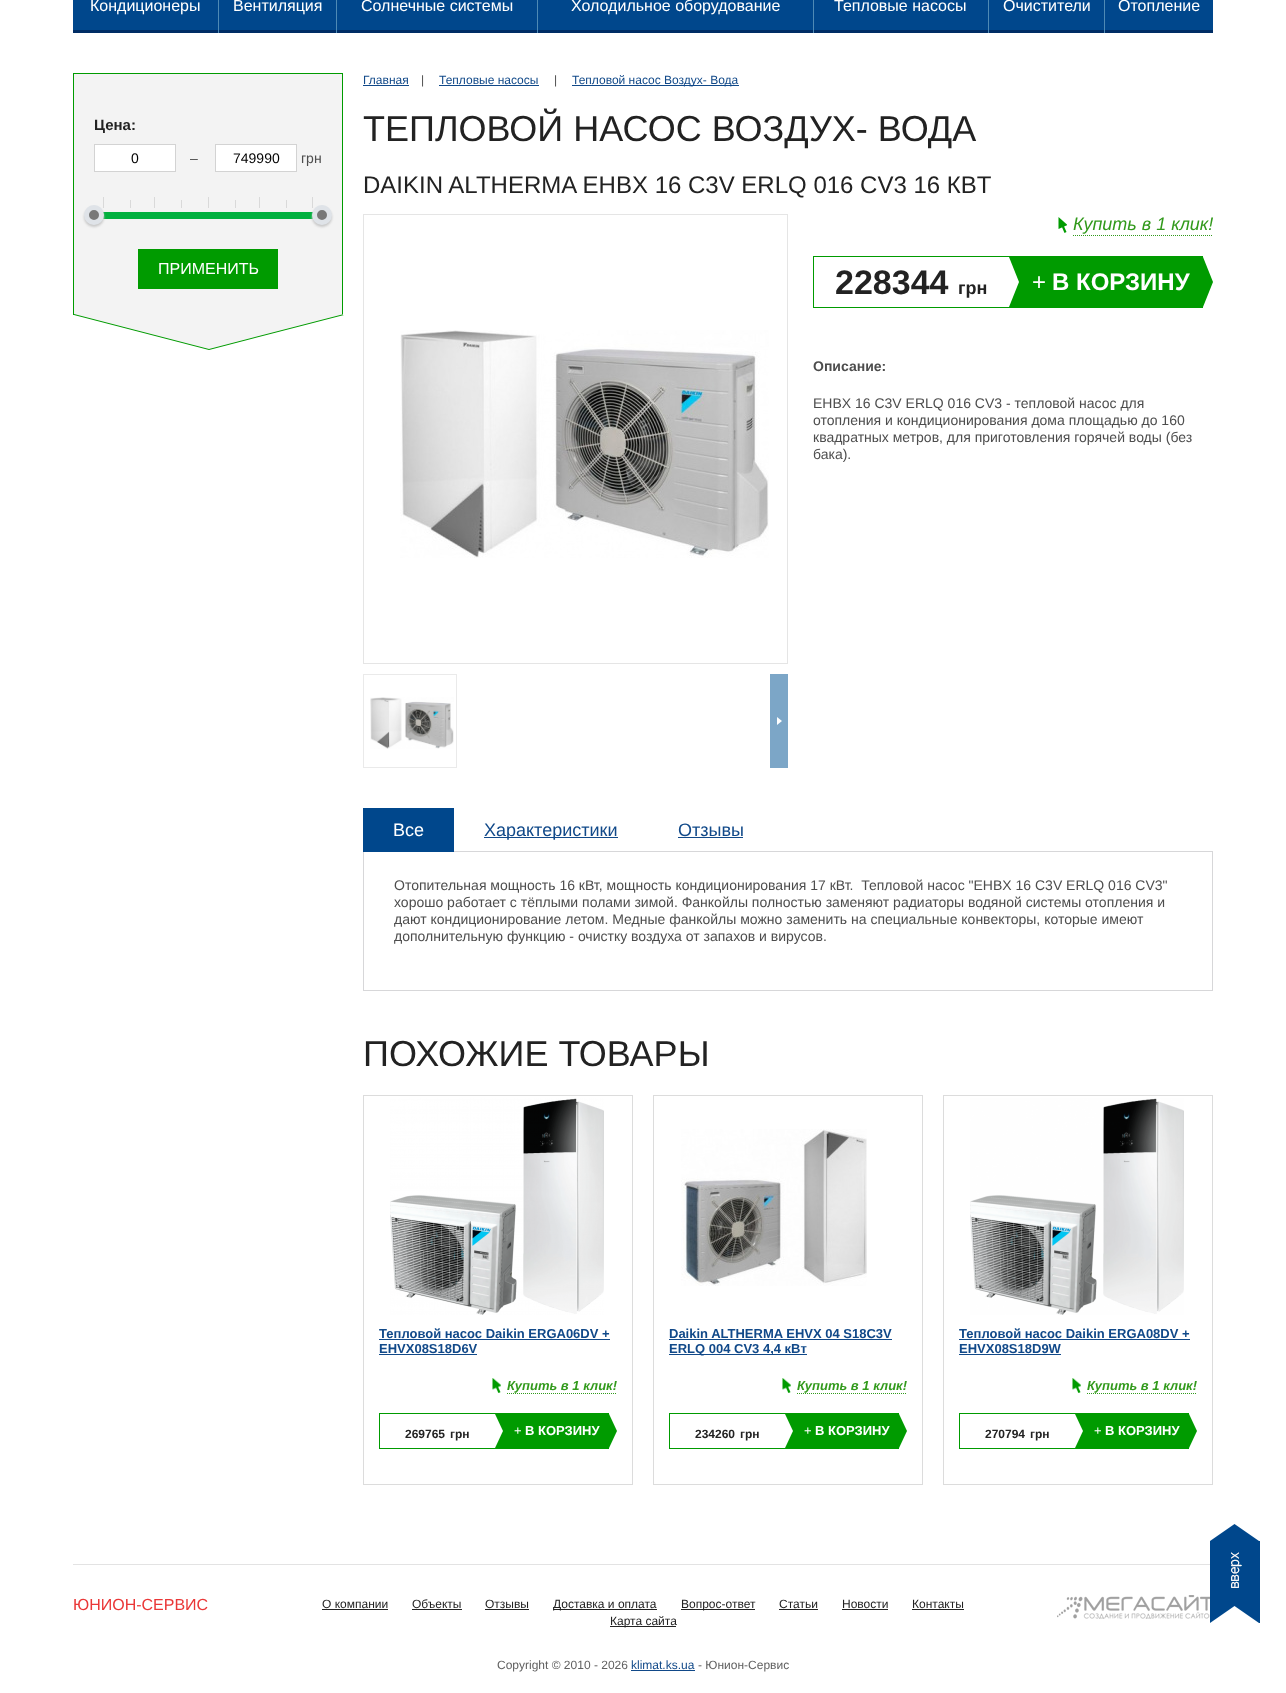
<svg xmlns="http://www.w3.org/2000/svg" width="1286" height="1693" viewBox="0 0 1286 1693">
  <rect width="100%" height="100%" fill="rgb(255,255,255)"/>
  <rect x="73" y="0" width="145" height="30" fill="rgb(0,71,140)"/>
  <rect x="73" y="30" width="145" height="3" fill="rgb(0,45,101)"/>
  <text x="90" y="11" font-family="Liberation Sans" font-size="16" fill="rgb(255,255,255)">Кондиционеры</text>
  <rect x="218" y="0" width="1" height="33" fill="rgb(78,138,181)"/>
  <rect x="219" y="0" width="117" height="30" fill="rgb(0,71,140)"/>
  <rect x="219" y="30" width="117" height="3" fill="rgb(0,45,101)"/>
  <text x="233" y="11" font-family="Liberation Sans" font-size="16" fill="rgb(255,255,255)">Вентиляция</text>
  <rect x="336" y="0" width="1" height="33" fill="rgb(78,138,181)"/>
  <rect x="337" y="0" width="200" height="30" fill="rgb(0,71,140)"/>
  <rect x="337" y="30" width="200" height="3" fill="rgb(0,45,101)"/>
  <text x="361" y="11" font-family="Liberation Sans" font-size="16" fill="rgb(255,255,255)">Солнечные системы</text>
  <rect x="537" y="0" width="1" height="33" fill="rgb(78,138,181)"/>
  <rect x="538" y="0" width="275" height="30" fill="rgb(0,71,140)"/>
  <rect x="538" y="30" width="275" height="3" fill="rgb(0,45,101)"/>
  <text x="571" y="11" font-family="Liberation Sans" font-size="16" fill="rgb(255,255,255)">Холодильное оборудование</text>
  <rect x="813" y="0" width="1" height="33" fill="rgb(78,138,181)"/>
  <rect x="814" y="0" width="174" height="30" fill="rgb(0,71,140)"/>
  <rect x="814" y="30" width="174" height="3" fill="rgb(0,45,101)"/>
  <text x="834" y="11" font-family="Liberation Sans" font-size="16" fill="rgb(255,255,255)">Тепловые насосы</text>
  <rect x="988" y="0" width="1" height="33" fill="rgb(78,138,181)"/>
  <rect x="989" y="0" width="115" height="30" fill="rgb(0,71,140)"/>
  <rect x="989" y="30" width="115" height="3" fill="rgb(0,45,101)"/>
  <text x="1003" y="11" font-family="Liberation Sans" font-size="16" fill="rgb(255,255,255)">Очистители</text>
  <rect x="1104" y="0" width="1" height="33" fill="rgb(78,138,181)"/>
  <rect x="1105" y="0" width="108" height="30" fill="rgb(0,71,140)"/>
  <rect x="1105" y="30" width="108" height="3" fill="rgb(0,45,101)"/>
  <text x="1118" y="11" font-family="Liberation Sans" font-size="16" fill="rgb(255,255,255)">Отопление</text>
  <rect x="73.5" y="73.5" width="269" height="241" fill="rgb(243,243,243)" stroke="rgb(0,155,0)"/>
  <text x="94" y="130" font-family="Liberation Sans" font-size="15" font-weight="bold" fill="rgb(34,34,34)">Цена:</text>
  <rect x="94.5" y="144.5" width="81" height="27" fill="rgb(255,255,255)" stroke="rgb(211,211,211)"/>
  <text x="131" y="163" font-family="Liberation Sans" font-size="14" fill="rgb(0,0,0)">0</text>
  <text x="190" y="163" font-family="Liberation Sans" font-size="14" fill="rgb(77,77,77)">–</text>
  <rect x="215.5" y="144.5" width="81" height="27" fill="rgb(255,255,255)" stroke="rgb(211,211,211)"/>
  <text x="233" y="163" font-family="Liberation Sans" font-size="14" fill="rgb(0,0,0)">749990</text>
  <text x="301" y="163" font-family="Liberation Sans" font-size="14" fill="rgb(77,77,77)">грн</text>
  <image x="103" y="197" width="210" height="11" href="pic1.png"/>
  <rect x="103" y="212" width="210" height="7" fill="rgb(0,176,62)"/>
  <rect x="84" y="207" width="20" height="20" rx="10" fill="rgb(199,199,199)" filter="blur(1px)"/>
  <circle cx="94" cy="215" r="7.5" fill="rgb(120,120,120)" stroke="rgb(223,227,232)" stroke-width="5"/>
  <rect x="312" y="207" width="20" height="20" rx="10" fill="rgb(199,199,199)" filter="blur(1px)"/>
  <circle cx="322" cy="215" r="7.5" fill="rgb(120,120,120)" stroke="rgb(223,227,232)" stroke-width="5"/>
  <rect x="138" y="249" width="140" height="40" fill="rgb(0,155,0)"/>
  <text x="158" y="274" font-family="Liberation Sans" font-size="16" fill="rgb(255,255,255)">ПРИМЕНИТЬ</text>
  <path d="M74 315H344L209 350Z" fill="rgb(0,155,0)"/>
  <path d="M74 314H344L209 349Z" fill="rgb(243,243,243)"/>
  <text x="363" y="84" font-family="Liberation Sans" font-size="12" fill="rgb(17,73,137)">Главная</text>
  <rect x="363" y="85" width="46" height="1" fill="rgb(17,73,137)"/>
  <text x="421" y="84" font-family="Liberation Sans" font-size="12" fill="rgb(77,77,77)">|</text>
  <text x="439" y="84" font-family="Liberation Sans" font-size="12" fill="rgb(17,73,137)">Тепловые насосы</text>
  <rect x="439" y="85" width="100" height="1" fill="rgb(17,73,137)"/>
  <text x="554" y="84" font-family="Liberation Sans" font-size="12" fill="rgb(77,77,77)">|</text>
  <rect x="572" y="85" width="167" height="1" fill="rgb(17,73,137)"/>
  <text x="572" y="84" font-family="Liberation Sans" font-size="12" fill="rgb(17,73,137)">Тепловой насос Воздух- Вода</text>
  <text x="363" y="141" font-family="Liberation Sans" font-size="36" fill="rgb(34,34,34)">ТЕПЛОВОЙ НАСОС ВОЗДУХ- ВОДА</text>
  <text x="363" y="193" font-family="Liberation Sans" font-size="24" fill="rgb(34,34,34)">DAIKIN ALTHERMA EHBX 16 C3V ERLQ 016 CV3 16 КBТ</text>
  <rect x="363.5" y="214.5" width="424" height="449" fill="none" stroke="rgb(229,229,229)"/>
  <image x="400" y="330" width="369" height="228" href="pic2.png"/>
  <rect x="363.5" y="674.5" width="93" height="93" fill="none" stroke="rgb(234,234,234)"/>
  <image x="370" y="697" width="84" height="52" href="pic3.png"/>
  <rect x="770" y="674" width="18" height="94" fill="rgb(124,166,199)"/>
  <path d="M777 725V717L782 721Z" fill="rgb(255,255,255)"/>
  <image x="1058" y="217" width="9" height="16" href="pic4.png"/>
  <path d="M1073 235.5H1213" fill="none" stroke="rgb(50,154,28)" stroke-dasharray="1 1"/>
  <text x="1073" y="230" font-family="Liberation Sans" font-size="18" font-style="italic" fill="rgb(50,154,28)">Купить в 1 клик!</text>
  <rect x="813" y="256" width="390" height="1" fill="rgb(0,155,0)"/>
  <rect x="813" y="307" width="390" height="1" fill="rgb(0,155,0)"/>
  <rect x="813" y="256" width="1" height="52" fill="rgb(0,155,0)"/>
  <text x="835" y="294" font-family="Liberation Sans" font-size="34" font-weight="bold" fill="rgb(34,34,34)">228344</text>
  <text x="958" y="294" font-family="Liberation Sans" font-size="18" font-weight="bold" fill="rgb(34,34,34)">грн</text>
  <rect x="1009" y="257" width="194" height="50" fill="rgb(0,155,0)"/>
  <path d="M1009 307V257L1019 282Z" fill="rgb(255,255,255)"/>
  <text x="1032" y="290" font-family="Liberation Sans" font-size="24" fill="rgb(255,255,255)">+</text>
  <text x="1052" y="290" font-family="Liberation Sans" font-size="24" font-weight="bold" fill="rgb(255,255,255)">В КОРЗИНУ</text>
  <path d="M1203 307V257L1213 282Z" fill="rgb(0,155,0)"/>
  <text x="813" y="371" font-family="Liberation Sans" font-size="14" font-weight="bold" fill="rgb(77,77,77)">Описание:</text>
  <g font-family="Liberation Sans" font-size="14" fill="rgb(77,77,77)">
    <text>
      <tspan x="813" y="408">EHBX 16 C3V ERLQ 016 CV3 - тепловой насос для</tspan>
      <tspan x="813" y="425">отопления и кондиционирования дома площадью до 160</tspan>
      <tspan x="813" y="442">квадратных метров, для приготовления горячей воды (без</tspan>
      <tspan x="813" y="459">бака).</tspan>
    </text>
  </g>
  <rect x="363.5" y="851.5" width="849" height="139" fill="none" stroke="rgb(215,215,217)"/>
  <rect x="363" y="808" width="91" height="44" fill="rgb(0,71,140)"/>
  <text x="393" y="836" font-family="Liberation Sans" font-size="18" fill="rgb(255,255,255)">Все</text>
  <rect x="484" y="837" width="134" height="1" fill="rgb(17,73,137)"/>
  <g font-family="Liberation Sans" font-size="18" fill="rgb(17,73,137)">
    <text x="484" y="836">Характеристики</text>
    <text x="678" y="836">Отзывы</text>
  </g>
  <rect x="678" y="837" width="65" height="1" fill="rgb(17,73,137)"/>
  <g font-family="Liberation Sans" font-size="14" fill="rgb(77,77,77)">
    <text xml:space="preserve"><tspan x="394" y="890">Отопительная мощность 16 кВт, мощность кондиционирования 17 кВт.  Тепловой насос "EHBX 16 C3V ERLQ 016 CV3"</tspan><tspan x="394" y="907">хорошо работает с тёплыми полами зимой. Фанкойлы полностью заменяют радиаторы водяной системы отопления и</tspan><tspan x="394" y="924">дают кондиционирование летом. Медные фанкойлы можно заменить на специальные конвекторы, которые имеют</tspan><tspan x="394" y="941">дополнительную функцию - очистку воздуха от запахов и вирусов.</tspan></text>
  </g>
  <text x="363" y="1066" font-family="Liberation Sans" font-size="36" fill="rgb(34,34,34)">ПОХОЖИЕ ТОВАРЫ</text>
  <rect x="363.5" y="1095.5" width="269" height="389" fill="none" stroke="rgb(220,220,220)"/>
  <image x="390" y="1098" width="214" height="217" href="pic5.png"/>
  <text x="379" y="1338" font-family="Liberation Sans" font-size="13" font-weight="bold" fill="rgb(17,73,137)">Тепловой насос Daikin ERGA06DV +</text>
  <rect x="379" y="1339" width="231" height="1" fill="rgb(17,73,137)"/>
  <text x="379" y="1353" font-family="Liberation Sans" font-size="13" font-weight="bold" fill="rgb(17,73,137)">EHVX08S18D6V</text>
  <rect x="379" y="1354" width="98" height="1" fill="rgb(17,73,137)"/>
  <image x="492" y="1378" width="9" height="15" href="pic6.png"/>
  <text x="507" y="1390" font-family="Liberation Sans" font-size="13" font-weight="bold" font-style="italic" fill="rgb(50,154,28)">Купить в 1 клик!</text>
  <path d="M507 1393.5H617" fill="none" stroke="rgb(50,154,28)" stroke-dasharray="1 1"/>
  <rect x="379" y="1413" width="230" height="1" fill="rgb(0,155,0)"/>
  <rect x="379" y="1448" width="230" height="1" fill="rgb(0,155,0)"/>
  <rect x="379" y="1413" width="1" height="36" fill="rgb(0,155,0)"/>
  <g font-family="Liberation Sans" font-size="12" font-weight="bold" fill="rgb(34,34,34)">
    <text x="405" y="1438">269765</text>
    <text x="450" y="1438">грн</text>
  </g>
  <rect x="495" y="1414" width="114" height="34" fill="rgb(0,155,0)"/>
  <path d="M495 1448V1414L503 1431Z" fill="rgb(255,255,255)"/>
  <text x="514" y="1435" font-family="Liberation Sans" font-size="13" fill="rgb(255,255,255)">+</text>
  <text x="525" y="1435" font-family="Liberation Sans" font-size="13" font-weight="bold" fill="rgb(255,255,255)">В КОРЗИНУ</text>
  <path d="M609 1448V1414L617 1431Z" fill="rgb(0,155,0)"/>
  <rect x="653.5" y="1095.5" width="269" height="389" fill="none" stroke="rgb(220,220,220)"/>
  <image x="681" y="1129" width="186" height="157" href="pic7.png"/>
  <text x="669" y="1338" font-family="Liberation Sans" font-size="13" font-weight="bold" fill="rgb(17,73,137)">Daikin ALTHERMA EHVX 04 S18C3V</text>
  <rect x="669" y="1339" width="223" height="1" fill="rgb(17,73,137)"/>
  <rect x="669" y="1354" width="138" height="1" fill="rgb(17,73,137)"/>
  <text x="669" y="1353" font-family="Liberation Sans" font-size="13" font-weight="bold" fill="rgb(17,73,137)">ERLQ 004 CV3 4,4 кBт</text>
  <image x="782" y="1378" width="9" height="15" href="pic6.png"/>
  <text x="797" y="1390" font-family="Liberation Sans" font-size="13" font-weight="bold" font-style="italic" fill="rgb(50,154,28)">Купить в 1 клик!</text>
  <path d="M797 1393.5H907" fill="none" stroke="rgb(50,154,28)" stroke-dasharray="1 1"/>
  <rect x="669" y="1413" width="230" height="1" fill="rgb(0,155,0)"/>
  <rect x="669" y="1448" width="230" height="1" fill="rgb(0,155,0)"/>
  <rect x="669" y="1413" width="1" height="36" fill="rgb(0,155,0)"/>
  <g font-family="Liberation Sans" font-size="12" font-weight="bold" fill="rgb(34,34,34)">
    <text x="695" y="1438">234260</text>
    <text x="740" y="1438">грн</text>
  </g>
  <rect x="785" y="1414" width="114" height="34" fill="rgb(0,155,0)"/>
  <path d="M785 1448V1414L793 1431Z" fill="rgb(255,255,255)"/>
  <text x="804" y="1435" font-family="Liberation Sans" font-size="13" fill="rgb(255,255,255)">+</text>
  <text x="815" y="1435" font-family="Liberation Sans" font-size="13" font-weight="bold" fill="rgb(255,255,255)">В КОРЗИНУ</text>
  <path d="M899 1448V1414L907 1431Z" fill="rgb(0,155,0)"/>
  <rect x="943.5" y="1095.5" width="269" height="389" fill="none" stroke="rgb(220,220,220)"/>
  <image x="970" y="1098" width="214" height="217" href="pic8.png"/>
  <text x="959" y="1338" font-family="Liberation Sans" font-size="13" font-weight="bold" fill="rgb(17,73,137)">Тепловой насос Daikin ERGA08DV +</text>
  <rect x="959" y="1339" width="231" height="1" fill="rgb(17,73,137)"/>
  <text x="959" y="1353" font-family="Liberation Sans" font-size="13" font-weight="bold" fill="rgb(17,73,137)">EHVX08S18D9W</text>
  <rect x="959" y="1354" width="102" height="1" fill="rgb(17,73,137)"/>
  <image x="1072" y="1378" width="9" height="15" href="pic6.png"/>
  <text x="1087" y="1390" font-family="Liberation Sans" font-size="13" font-weight="bold" font-style="italic" fill="rgb(50,154,28)">Купить в 1 клик!</text>
  <path d="M1087 1393.5H1197" fill="none" stroke="rgb(50,154,28)" stroke-dasharray="1 1"/>
  <rect x="959" y="1413" width="230" height="1" fill="rgb(0,155,0)"/>
  <rect x="959" y="1448" width="230" height="1" fill="rgb(0,155,0)"/>
  <rect x="959" y="1413" width="1" height="36" fill="rgb(0,155,0)"/>
  <g font-family="Liberation Sans" font-size="12" font-weight="bold" fill="rgb(34,34,34)">
    <text x="985" y="1438">270794</text>
    <text x="1030" y="1438">грн</text>
  </g>
  <rect x="1075" y="1414" width="114" height="34" fill="rgb(0,155,0)"/>
  <path d="M1075 1448V1414L1083 1431Z" fill="rgb(255,255,255)"/>
  <text x="1094" y="1435" font-family="Liberation Sans" font-size="13" fill="rgb(255,255,255)">+</text>
  <text x="1105" y="1435" font-family="Liberation Sans" font-size="13" font-weight="bold" fill="rgb(255,255,255)">В КОРЗИНУ</text>
  <path d="M1189 1448V1414L1197 1431Z" fill="rgb(0,155,0)"/>
  <rect x="73" y="1564" width="1140" height="1" fill="rgb(227,227,227)"/>
  <image x="1210" y="1524" width="50" height="99" href="pic9.png"/>
  <text x="73" y="1610" font-family="Liberation Sans" font-size="16" fill="rgb(234,55,55)">ЮНИОН-СЕРВИС</text>
  <text x="322" y="1608" font-family="Liberation Sans" font-size="12" fill="rgb(34,34,34)">О компании</text>
  <rect x="322" y="1609" width="66" height="1" fill="rgb(34,34,34)"/>
  <text x="412" y="1608" font-family="Liberation Sans" font-size="12" fill="rgb(34,34,34)">Объекты</text>
  <rect x="412" y="1609" width="50" height="1" fill="rgb(34,34,34)"/>
  <text x="485" y="1608" font-family="Liberation Sans" font-size="12" fill="rgb(34,34,34)">Отзывы</text>
  <rect x="485" y="1609" width="44" height="1" fill="rgb(34,34,34)"/>
  <rect x="553" y="1609" width="104" height="1" fill="rgb(34,34,34)"/>
  <text x="553" y="1608" font-family="Liberation Sans" font-size="12" fill="rgb(34,34,34)">Доставка и оплата</text>
  <rect x="681" y="1609" width="74" height="1" fill="rgb(34,34,34)"/>
  <g font-family="Liberation Sans" font-size="12" fill="rgb(34,34,34)">
    <text x="681" y="1608">Вопрос-ответ</text>
    <text x="779" y="1608">Статьи</text>
  </g>
  <rect x="779" y="1609" width="39" height="1" fill="rgb(34,34,34)"/>
  <text x="842" y="1608" font-family="Liberation Sans" font-size="12" fill="rgb(34,34,34)">Новости</text>
  <rect x="842" y="1609" width="46" height="1" fill="rgb(34,34,34)"/>
  <text x="912" y="1608" font-family="Liberation Sans" font-size="12" fill="rgb(34,34,34)">Контакты</text>
  <rect x="912" y="1609" width="52" height="1" fill="rgb(34,34,34)"/>
  <rect x="610" y="1626" width="66" height="1" fill="rgb(34,34,34)"/>
  <text x="610" y="1625" font-family="Liberation Sans" font-size="12" fill="rgb(34,34,34)">Карта сайта</text>
  <text x="497" y="1669" font-family="Liberation Sans" font-size="12" fill="rgb(96,96,96)">Copyright © 2010 - 2026</text>
  <text x="631" y="1669" font-family="Liberation Sans" font-size="12" fill="rgb(17,73,137)">klimat.ks.ua</text>
  <rect x="631" y="1670" width="64" height="1" fill="rgb(17,73,137)"/>
  <text x="698" y="1669" font-family="Liberation Sans" font-size="12" fill="rgb(96,96,96)">- Юнион-Сервис</text>
  <image x="1057" y="1595" width="153" height="24" href="pic10.png"/>
</svg>
